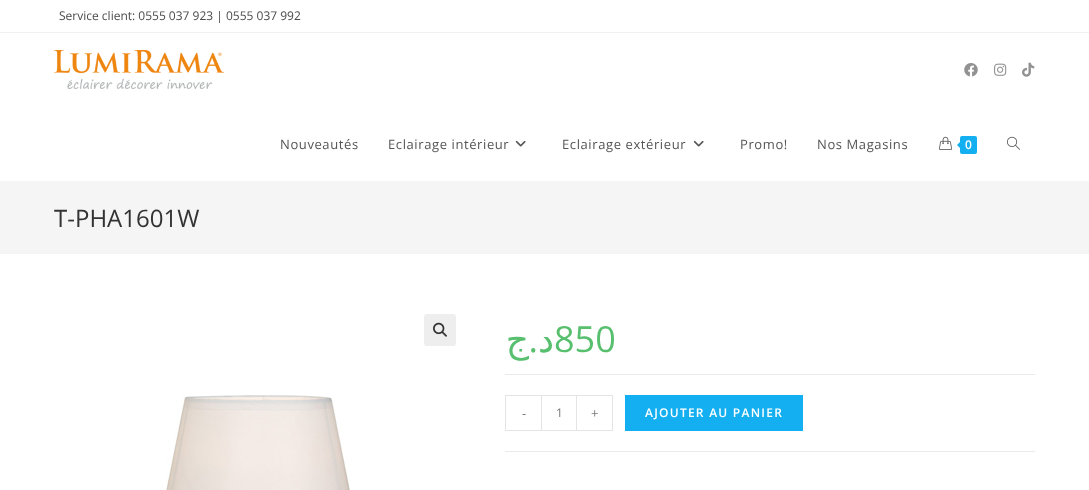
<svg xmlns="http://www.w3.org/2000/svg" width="1089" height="490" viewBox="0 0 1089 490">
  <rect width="100%" height="100%" fill="rgb(255,255,255)"/>
  <rect x="0" y="32" width="1089" height="1" fill="rgb(241,241,241)"/>
  <text x="59" y="20" font-family="Open Sans" font-size="12" fill="rgb(74,74,74)">Service client: 0555 037 923 | 0555 037 992</text>
  <image x="54" y="50" width="170" height="39" href="pic1.png"/>
  <image x="964" y="63" width="14" height="14" href="pic2.png"/>
  <image x="994" y="63" width="13" height="13" href="pic3.png"/>
  <image x="1022" y="62" width="13" height="15" href="pic4.png"/>
  <g font-family="Open Sans" font-size="13" letter-spacing="0.6" fill="rgb(85,85,85)">
    <text x="280" y="149">Nouveautés</text>
    <text x="388" y="149">Eclairage intérieur</text>
  </g>
  <image x="515" y="140" width="11" height="7" href="pic5.png"/>
  <text x="562" y="149" font-family="Open Sans" font-size="13" letter-spacing="0.6" fill="rgb(85,85,85)">Eclairage extérieur</text>
  <image x="693" y="140" width="11" height="7" href="pic5.png"/>
  <g font-family="Open Sans" font-size="13" letter-spacing="0.6" fill="rgb(85,85,85)">
    <text x="740" y="149">Promo!</text>
    <text x="817" y="149">Nos Magasins</text>
  </g>
  <image x="939" y="136" width="13" height="14" href="pic6.png"/>
  <rect x="960" y="136" width="17" height="18" rx="2" fill="rgb(19,175,240)"/>
  <path d="M962 140V150L957 145Z" fill="rgb(19,175,240)"/>
  <text x="965" y="149" font-family="Open Sans" font-size="12" font-weight="600" fill="rgb(255,255,255)">0</text>
  <image x="1007" y="136" width="13" height="14" href="pic7.png"/>
  <rect x="0" y="181" width="1089" height="73" fill="rgb(245,245,245)"/>
  <text x="54" y="227" font-family="Open Sans" font-size="24" fill="rgb(51,51,51)">T-PHA1601W</text>
  <rect x="424" y="314" width="32" height="32" rx="3" fill="rgb(238,238,238)"/>
  <image x="433" y="322" width="14" height="15" href="pic8.png"/>
  <image x="166" y="395" width="184" height="95" href="pic9.png"/>
  <text x="529" y="352" font-family="DejaVu Sans" font-size="36" direction="rtl" fill="rgb(87,191,109)">ج</text>
  <text x="538" y="352" font-family="Open Sans" font-size="36" direction="rtl" fill="rgb(87,191,109)">.</text>
  <text x="554" y="352" font-family="DejaVu Sans" font-size="36" direction="rtl" fill="rgb(87,191,109)">د</text>
  <text x="554" y="352" font-family="Open Sans" font-size="36" fill="rgb(87,191,109)">850</text>
  <rect x="505" y="374" width="530" height="1" fill="rgb(234,234,234)"/>
  <rect x="505" y="451" width="530" height="1" fill="rgb(234,234,234)"/>
  <rect x="505" y="395" width="36" height="1" fill="rgb(228,228,228)"/>
  <rect x="505" y="430" width="36" height="1" fill="rgb(228,228,228)"/>
  <rect x="505" y="395" width="1" height="36" fill="rgb(228,228,228)"/>
  <text x="522" y="418" font-family="Open Sans" font-size="13" fill="rgb(119,119,119)">-</text>
  <rect x="541.5" y="395.5" width="35" height="35" fill="none" stroke="rgb(228,228,228)"/>
  <text x="556" y="417" font-family="Open Sans" font-size="12" fill="rgb(119,119,119)">1</text>
  <rect x="577" y="395" width="36" height="1" fill="rgb(228,228,228)"/>
  <rect x="612" y="395" width="1" height="36" fill="rgb(228,228,228)"/>
  <rect x="577" y="430" width="36" height="1" fill="rgb(228,228,228)"/>
  <text x="591" y="418" font-family="Open Sans" font-size="13" fill="rgb(119,119,119)">+</text>
  <rect x="625" y="395" width="178" height="36" fill="rgb(19,175,240)"/>
  <text x="645" y="417" font-family="Open Sans" font-size="12" font-weight="600" letter-spacing="1.25" fill="rgb(255,255,255)">AJOUTER AU PANIER</text>
</svg>
